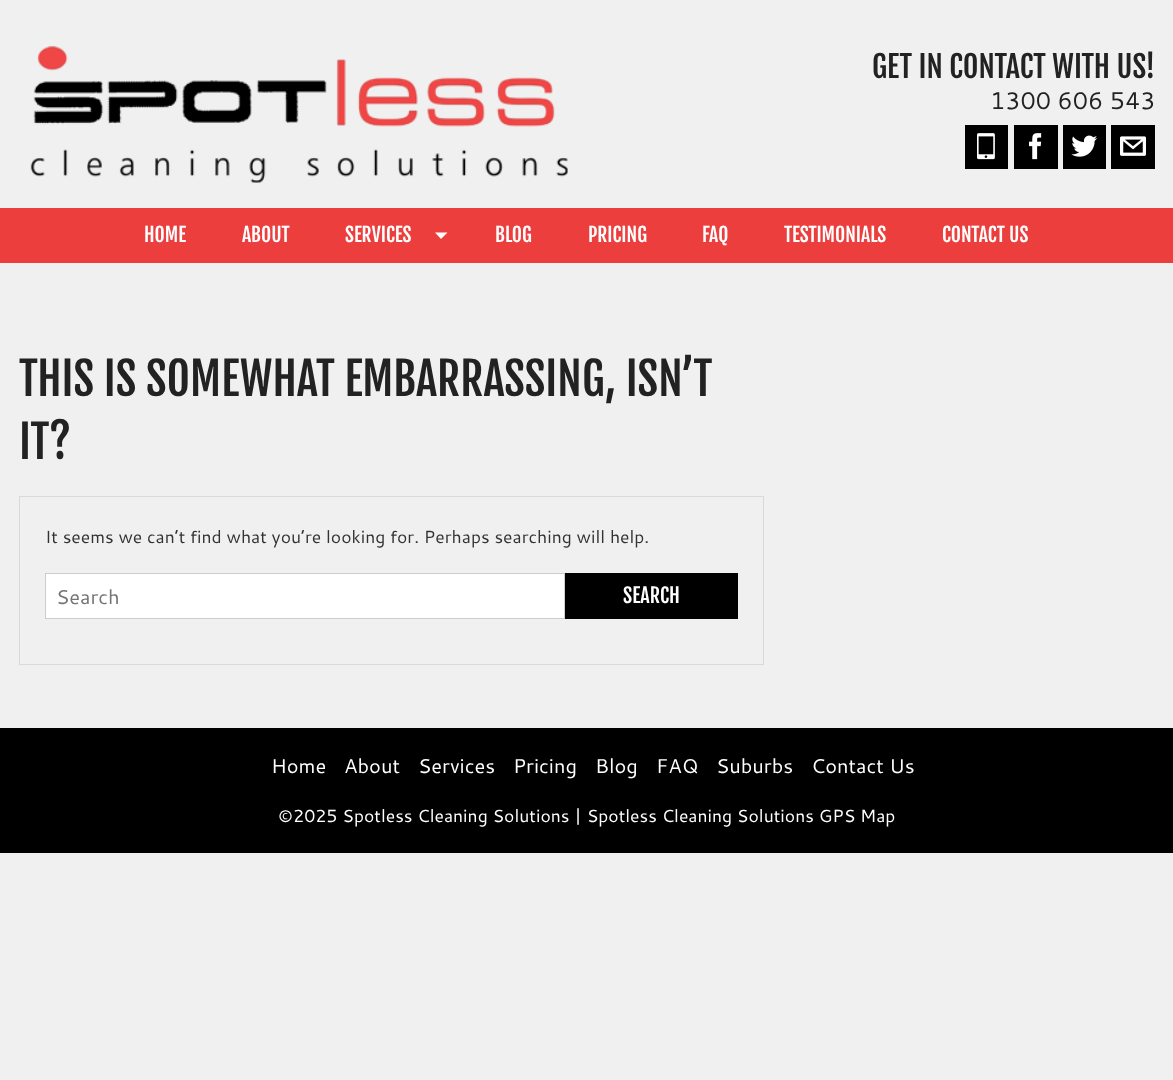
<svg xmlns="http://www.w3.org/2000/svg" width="1173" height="1080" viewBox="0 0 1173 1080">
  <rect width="100%" height="100%" fill="rgb(240,240,240)"/>
  <image x="30" y="46" width="538" height="137" href="pic1.png"/>
  <text x="872" y="78" font-family="Fjalla One" font-size="30" fill="rgb(34,34,34)">GET IN CONTACT WITH US!</text>
  <text x="990" y="109" font-family="Cantarell" font-size="24" fill="rgb(34,34,34)">1300 606 543</text>
  <rect x="965" y="125" width="43" height="44" fill="rgb(0,0,0)"/>
  <image x="977" y="133" width="18" height="27" href="pic2.png"/>
  <rect x="1014" y="125" width="44" height="44" fill="rgb(0,0,0)"/>
  <image x="1029" y="133" width="13" height="27" href="pic3.png"/>
  <rect x="1063" y="125" width="43" height="44" fill="rgb(0,0,0)"/>
  <image x="1071" y="135" width="27" height="22" href="pic4.png"/>
  <rect x="1111" y="125" width="44" height="44" fill="rgb(0,0,0)"/>
  <image x="1120" y="136" width="26" height="20" href="pic5.png"/>
  <rect x="0" y="208" width="1173" height="55" fill="rgb(237,62,62)"/>
  <g font-family="Fjalla One" font-size="19.5" fill="rgb(255,255,255)">
    <text x="144" y="242">HOME</text>
    <text x="242" y="242">ABOUT</text>
    <text x="345" y="242">SERVICES</text>
  </g>
  <path d="M435 232.5H447.5L441 239Z" fill="rgb(255,255,255)"/>
  <g font-family="Fjalla One" font-size="19.5" fill="rgb(255,255,255)">
    <text x="495" y="242">BLOG</text>
    <text x="588" y="242">PRICING</text>
    <text x="702" y="242">FAQ</text>
    <text x="784" y="242">TESTIMONIALS</text>
    <text x="942" y="242">CONTACT US</text>
  </g>
  <g font-family="Fjalla One" font-size="45" fill="rgb(34,34,34)">
    <text>
      <tspan x="19" y="396">THIS IS SOMEWHAT EMBARRASSING, ISN’T</tspan>
      <tspan x="19" y="459">IT?</tspan>
    </text>
  </g>
  <rect x="19.5" y="496.5" width="744" height="168" fill="none" stroke="rgb(217,217,217)"/>
  <text x="45" y="543" font-family="Cantarell" font-size="17.5" fill="rgb(51,51,51)">It seems we can’t find what you’re looking for. Perhaps searching will help.</text>
  <rect x="45.5" y="573.5" width="519" height="45" fill="rgb(255,255,255)" stroke="rgb(204,204,204)"/>
  <text x="56" y="604" font-family="Cantarell" font-size="20" fill="rgb(117,117,117)">Search</text>
  <rect x="565" y="573" width="173" height="46" fill="rgb(0,0,0)"/>
  <text x="623" y="603" font-family="Fjalla One" font-size="20" fill="rgb(255,255,255)">SEARCH</text>
  <rect x="0" y="728" width="1173" height="125" fill="rgb(0,0,0)"/>
  <g font-family="Cantarell" font-size="20" fill="rgb(255,255,255)">
    <text x="271" y="773">Home</text>
    <text x="344" y="773">About</text>
    <text x="418" y="773">Services</text>
    <text x="513" y="773">Pricing</text>
    <text x="595" y="773">Blog</text>
    <text x="656" y="773">FAQ</text>
    <text x="716" y="773">Suburbs</text>
    <text x="811" y="773">Contact Us</text>
  </g>
  <text x="278" y="822" font-family="Cantarell" font-size="17.5" fill="rgb(255,255,255)">©2025 Spotless Cleaning Solutions | Spotless Cleaning Solutions GPS Map</text>
</svg>
